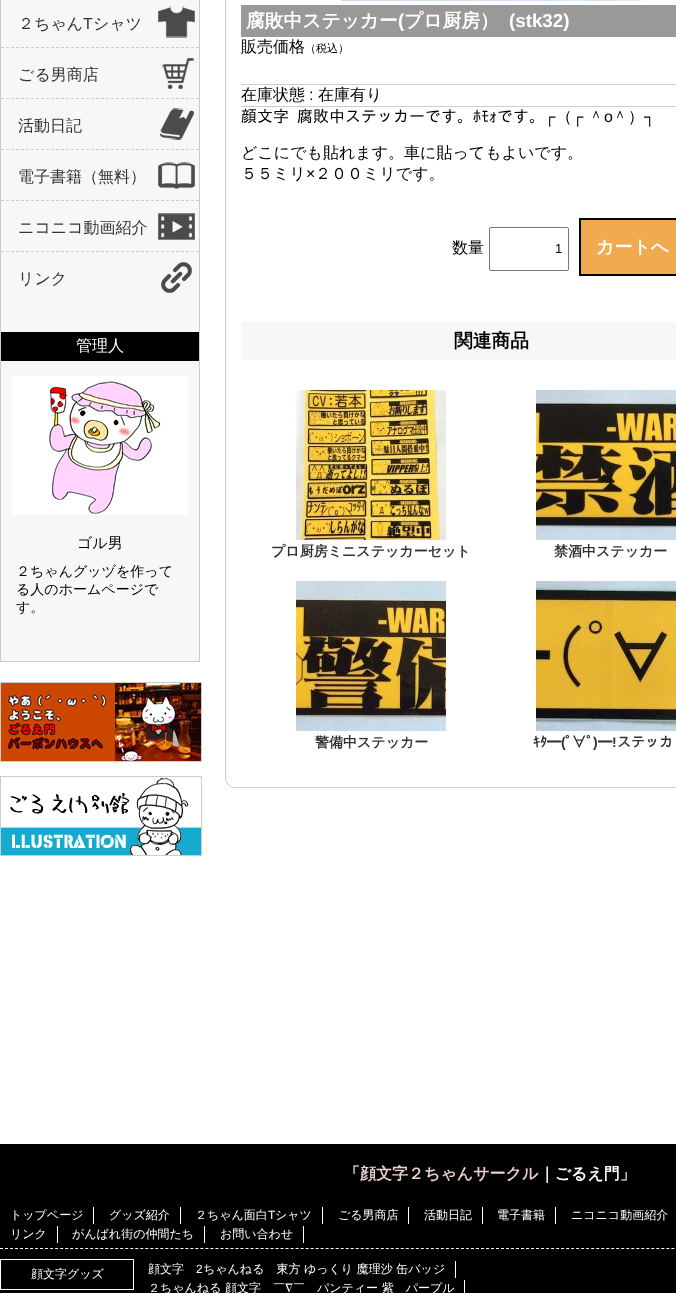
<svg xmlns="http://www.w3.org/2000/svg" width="676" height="1293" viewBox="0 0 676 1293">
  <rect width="100%" height="100%" fill="rgb(255,255,255)"/>
  <rect x="1" y="0" width="198" height="661" fill="rgb(247,247,247)"/>
  <rect x="199" y="0" width="1" height="662" fill="rgb(204,204,204)"/>
  <rect x="0" y="661" width="200" height="1" fill="rgb(204,204,204)"/>
  <rect x="0" y="0" width="1" height="662" fill="rgb(204,204,204)"/>
  <image x="158" y="6" width="37" height="32" href="pic1.png"/>
  <path d="M1 47.5H199" fill="none" stroke="rgb(204,204,204)" stroke-dasharray="3 2"/>
  <text x="18" y="29" font-family="WenQuanYi Zen Hei" font-size="16" font-weight="500" fill="rgb(51,51,51)">２ちゃん</text>
  <text x="83" y="29" font-family="Liberation Sans" font-size="16" fill="rgb(51,51,51)">T</text>
  <text x="93" y="29" font-family="WenQuanYi Zen Hei" font-size="16" font-weight="500" fill="rgb(51,51,51)">シャツ</text>
  <image x="162" y="58" width="32" height="31" href="pic2.png"/>
  <path d="M1 98.5H199" fill="none" stroke="rgb(204,204,204)" stroke-dasharray="3 2"/>
  <text x="18" y="80" font-family="WenQuanYi Zen Hei" font-size="16" font-weight="500" fill="rgb(51,51,51)">ごる男商店</text>
  <image x="160" y="108" width="34" height="32" href="pic3.png"/>
  <path d="M1 149.5H199" fill="none" stroke="rgb(204,204,204)" stroke-dasharray="3 2"/>
  <text x="18" y="131" font-family="WenQuanYi Zen Hei" font-size="16" font-weight="500" fill="rgb(51,51,51)">活動日記</text>
  <image x="158" y="162" width="37" height="27" href="pic4.png"/>
  <path d="M1 200.5H199" fill="none" stroke="rgb(204,204,204)" stroke-dasharray="3 2"/>
  <text x="18" y="182" font-family="WenQuanYi Zen Hei" font-size="16" font-weight="500" fill="rgb(51,51,51)">電子書籍（無料）</text>
  <image x="158" y="213" width="37" height="27" href="pic5.png"/>
  <path d="M1 251.5H199" fill="none" stroke="rgb(204,204,204)" stroke-dasharray="3 2"/>
  <text x="18" y="233" font-family="WenQuanYi Zen Hei" font-size="16" font-weight="500" fill="rgb(51,51,51)">ニコニコ動画紹介</text>
  <image x="161" y="262" width="31" height="31" href="pic6.png"/>
  <text x="18" y="284" font-family="WenQuanYi Zen Hei" font-size="16" font-weight="500" fill="rgb(51,51,51)">リンク</text>
  <rect x="1" y="332" width="198" height="29" fill="rgb(0,0,0)"/>
  <text x="76" y="351" font-family="WenQuanYi Zen Hei" font-size="16" font-weight="500" fill="rgb(255,255,255)">管理人</text>
  <image x="12" y="376" width="176" height="139" href="pic7.png"/>
  <text x="77" y="548" font-family="WenQuanYi Zen Hei" font-size="15" font-weight="500" fill="rgb(0,0,0)">ゴル男</text>
  <g font-family="WenQuanYi Zen Hei" font-size="14" font-weight="500" fill="rgb(0,0,0)">
    <text>
      <tspan x="16" y="576">２ちゃんグッヅを作って</tspan>
      <tspan x="16" y="594">る人のホームページで</tspan>
      <tspan x="16" y="612">す。</tspan>
    </text>
  </g>
  <image x="0" y="682" width="202" height="80" href="pic8.png"/>
  <image x="0" y="776" width="202" height="80" href="pic9.png"/>
  <rect x="225.5" y="-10.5" width="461" height="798" rx="9.5" fill="none" stroke="rgb(204,204,204)"/>
  <image x="341" y="0" width="300" height="1" href="pic10.png"/>
  <rect x="241" y="5" width="435" height="32" fill="rgb(153,153,153)"/>
  <text x="246" y="27" font-family="WenQuanYi Zen Hei" font-size="18.75" font-weight="bold" fill="rgb(255,255,255)">腐敗中ステッカー</text>
  <text x="398" y="27" font-family="Liberation Sans" font-size="18.75" font-weight="bold" fill="rgb(255,255,255)">(</text>
  <text x="404" y="27" font-family="WenQuanYi Zen Hei" font-size="18.75" font-weight="bold" fill="rgb(255,255,255)">プロ厨房）</text>
  <text x="509" y="27" font-family="Liberation Sans" font-size="18.75" font-weight="bold" fill="rgb(255,255,255)">(stk32)</text>
  <rect x="241" y="84" width="435" height="1" fill="rgb(204,204,204)"/>
  <text x="241" y="52" font-family="WenQuanYi Zen Hei" font-size="16" font-weight="500" fill="rgb(0,0,0)">販売価格</text>
  <text x="305" y="52" font-family="WenQuanYi Zen Hei" font-size="11" font-weight="500" fill="rgb(0,0,0)">（税込）</text>
  <rect x="241" y="106" width="435" height="1" fill="rgb(204,204,204)"/>
  <text x="241" y="100" font-family="WenQuanYi Zen Hei" font-size="16" font-weight="500" fill="rgb(0,0,0)">在庫状態</text>
  <text x="309" y="100" font-family="Liberation Sans" font-size="16" fill="rgb(0,0,0)">:</text>
  <text x="318" y="100" font-family="WenQuanYi Zen Hei" font-size="16" font-weight="500" fill="rgb(0,0,0)">在庫有り</text>
  <text x="241" y="122" font-family="IPAGothic" font-size="16" fill="rgb(0,0,0)">顔文字 腐敗中ステッカーです。ﾎﾓｫです。</text>
  <text x="544" y="122" font-family="Liberation Sans" font-size="16" fill="rgb(0,0,0)">┌</text>
  <text x="556" y="122" font-family="WenQuanYi Zen Hei" font-size="16" font-weight="500" fill="rgb(0,0,0)">（</text>
  <text x="572" y="122" font-family="Liberation Sans" font-size="16" fill="rgb(0,0,0)">┌</text>
  <text x="588" y="122" font-family="WenQuanYi Zen Hei" font-size="16" font-weight="500" fill="rgb(0,0,0)">＾</text>
  <text x="604" y="122" font-family="Liberation Sans" font-size="16" fill="rgb(0,0,0)">o</text>
  <text x="612" y="122" font-family="WenQuanYi Zen Hei" font-size="16" font-weight="500" fill="rgb(0,0,0)">＾）</text>
  <text x="644" y="122" font-family="Liberation Sans" font-size="16" fill="rgb(0,0,0)">┐</text>
  <g font-family="WenQuanYi Zen Hei" font-size="16" font-weight="500" fill="rgb(0,0,0)">
    <text>
      <tspan x="241" y="158">どこにでも貼れます。車に貼ってもよいです。</tspan>
      <tspan x="241" y="179">５５ミリ</tspan>
    </text>
  </g>
  <text x="306" y="179" font-family="Liberation Sans" font-size="16" fill="rgb(0,0,0)">×</text>
  <g font-family="WenQuanYi Zen Hei" font-size="16" font-weight="500" fill="rgb(0,0,0)">
    <text x="315" y="179">２００ミリです。</text>
    <text x="452" y="253">数量</text>
  </g>
  <rect x="489.5" y="227.5" width="79" height="43" rx="1.5" fill="none" stroke="rgb(118,118,118)"/>
  <text x="555" y="253" font-family="Liberation Sans" font-size="13" fill="rgb(0,0,0)">1</text>
  <rect x="580" y="219" width="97" height="56" fill="rgb(241,170,78)" stroke="rgb(0,0,0)" stroke-width="2"/>
  <text x="596" y="253" font-family="WenQuanYi Zen Hei" font-size="18" font-weight="bold" fill="rgb(255,255,255)">カートへ</text>
  <rect x="241" y="322" width="435" height="38" fill="rgb(247,247,247)"/>
  <text x="454" y="347" font-family="WenQuanYi Zen Hei" font-size="18.75" font-weight="bold" fill="rgb(0,0,0)">関連商品</text>
  <image x="296" y="390" width="150" height="150" href="pic11.png"/>
  <text x="271" y="556" font-family="WenQuanYi Zen Hei" font-size="14" font-weight="bold" fill="rgb(51,51,51)">プロ厨房ミニステッカーセット</text>
  <image x="536" y="390" width="140" height="150" href="pic12.png"/>
  <text x="554" y="556" font-family="WenQuanYi Zen Hei" font-size="14" font-weight="bold" fill="rgb(51,51,51)">禁酒中ステッカー</text>
  <image x="296" y="581" width="150" height="150" href="pic13.png"/>
  <text x="315" y="747" font-family="WenQuanYi Zen Hei" font-size="14" font-weight="bold" fill="rgb(51,51,51)">警備中ステッカー</text>
  <image x="536" y="581" width="140" height="150" href="pic14.png"/>
  <text x="533" y="747" font-family="IPAGothic" font-size="14" font-weight="bold" fill="rgb(51,51,51)">ｷﾀ━</text>
  <text x="561" y="747" font-family="Liberation Sans" font-size="14" font-weight="bold" fill="rgb(51,51,51)">(</text>
  <text x="565" y="747" font-family="IPAGothic" font-size="14" font-weight="bold" fill="rgb(51,51,51)">ﾟ∀ﾟ</text>
  <text x="593" y="747" font-family="Liberation Sans" font-size="14" font-weight="bold" fill="rgb(51,51,51)">)</text>
  <text x="598" y="747" font-family="IPAGothic" font-size="14" font-weight="bold" fill="rgb(51,51,51)">━</text>
  <text x="612" y="747" font-family="Liberation Sans" font-size="14" font-weight="bold" fill="rgb(51,51,51)">!</text>
  <text x="617" y="747" font-family="IPAGothic" font-size="14" font-weight="bold" fill="rgb(51,51,51)">ステッカ</text>
  <rect x="0" y="1144" width="676" height="149" fill="rgb(0,0,0)"/>
  <text x="344" y="1179" font-family="WenQuanYi Zen Hei" font-size="16" font-weight="bold" fill="rgb(255,255,255)">「</text>
  <text x="360" y="1179" font-family="WenQuanYi Zen Hei" font-size="16" font-weight="bold" fill="rgb(236,206,206)">顔文字２ちゃんサークル</text>
  <text x="539" y="1179" font-family="WenQuanYi Zen Hei" font-size="16" font-weight="bold" fill="rgb(255,255,255)">｜ごるえ門」</text>
  <path d="M0 1248.5H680" fill="none" stroke="rgb(255,255,255)" stroke-dasharray="3 2.01"/>
  <rect x="93" y="1207" width="1" height="17" fill="rgb(255,255,255)"/>
  <text x="10" y="1219" font-family="WenQuanYi Zen Hei" font-size="12" font-weight="500" fill="rgb(255,255,255)">トップページ</text>
  <rect x="180" y="1207" width="1" height="17" fill="rgb(255,255,255)"/>
  <text x="109" y="1219" font-family="WenQuanYi Zen Hei" font-size="12" font-weight="500" fill="rgb(255,255,255)">グッズ紹介</text>
  <rect x="322" y="1207" width="1" height="17" fill="rgb(255,255,255)"/>
  <text x="195" y="1219" font-family="WenQuanYi Zen Hei" font-size="12" font-weight="500" fill="rgb(255,255,255)">２ちゃん面白</text>
  <text x="268" y="1219" font-family="Liberation Sans" font-size="12" fill="rgb(255,255,255)">T</text>
  <text x="275" y="1219" font-family="WenQuanYi Zen Hei" font-size="12" font-weight="500" fill="rgb(255,255,255)">シャツ</text>
  <rect x="408" y="1207" width="1" height="17" fill="rgb(255,255,255)"/>
  <text x="338" y="1219" font-family="WenQuanYi Zen Hei" font-size="12" font-weight="500" fill="rgb(255,255,255)">ごる男商店</text>
  <rect x="482" y="1207" width="1" height="17" fill="rgb(255,255,255)"/>
  <text x="424" y="1219" font-family="WenQuanYi Zen Hei" font-size="12" font-weight="500" fill="rgb(255,255,255)">活動日記</text>
  <rect x="555" y="1207" width="1" height="17" fill="rgb(255,255,255)"/>
  <g font-family="WenQuanYi Zen Hei" font-size="12" font-weight="500" fill="rgb(255,255,255)">
    <text x="497" y="1219">電子書籍</text>
    <text x="571" y="1219">ニコニコ動画紹介</text>
  </g>
  <rect x="57" y="1226" width="1" height="17" fill="rgb(255,255,255)"/>
  <text x="10" y="1238" font-family="WenQuanYi Zen Hei" font-size="12" font-weight="500" fill="rgb(255,255,255)">リンク</text>
  <rect x="204" y="1226" width="1" height="17" fill="rgb(255,255,255)"/>
  <text x="72" y="1238" font-family="WenQuanYi Zen Hei" font-size="12" font-weight="500" fill="rgb(255,255,255)">がんばれ街の仲間たち</text>
  <rect x="303" y="1226" width="1" height="17" fill="rgb(255,255,255)"/>
  <text x="220" y="1238" font-family="WenQuanYi Zen Hei" font-size="12" font-weight="500" fill="rgb(255,255,255)">お問い合わせ</text>
  <rect x="0.5" y="1259.5" width="133" height="30" fill="none" stroke="rgb(255,255,255)"/>
  <text x="31" y="1278" font-family="WenQuanYi Zen Hei" font-size="12" font-weight="500" fill="rgb(255,255,255)">顔文字グッズ</text>
  <rect x="455" y="1261" width="1" height="17" fill="rgb(255,255,255)"/>
  <text x="148" y="1273" font-family="WenQuanYi Zen Hei" font-size="12" font-weight="500" fill="rgb(255,255,255)">顔文字</text>
  <text x="196" y="1273" font-family="Liberation Sans" font-size="12" fill="rgb(255,255,255)">2</text>
  <text x="203" y="1273" font-family="WenQuanYi Zen Hei" font-size="12" font-weight="500" fill="rgb(255,255,255)">ちゃんねる　東方 ゆっくり 魔理沙 缶バッジ</text>
  <rect x="464" y="1280" width="1" height="13" fill="rgb(255,255,255)"/>
  <text x="148" y="1292" font-family="WenQuanYi Zen Hei" font-size="12" font-weight="500" fill="rgb(255,255,255)">２ちゃんねる 顔文字　￣∇￣　パンティー 紫　パープル</text>
</svg>
